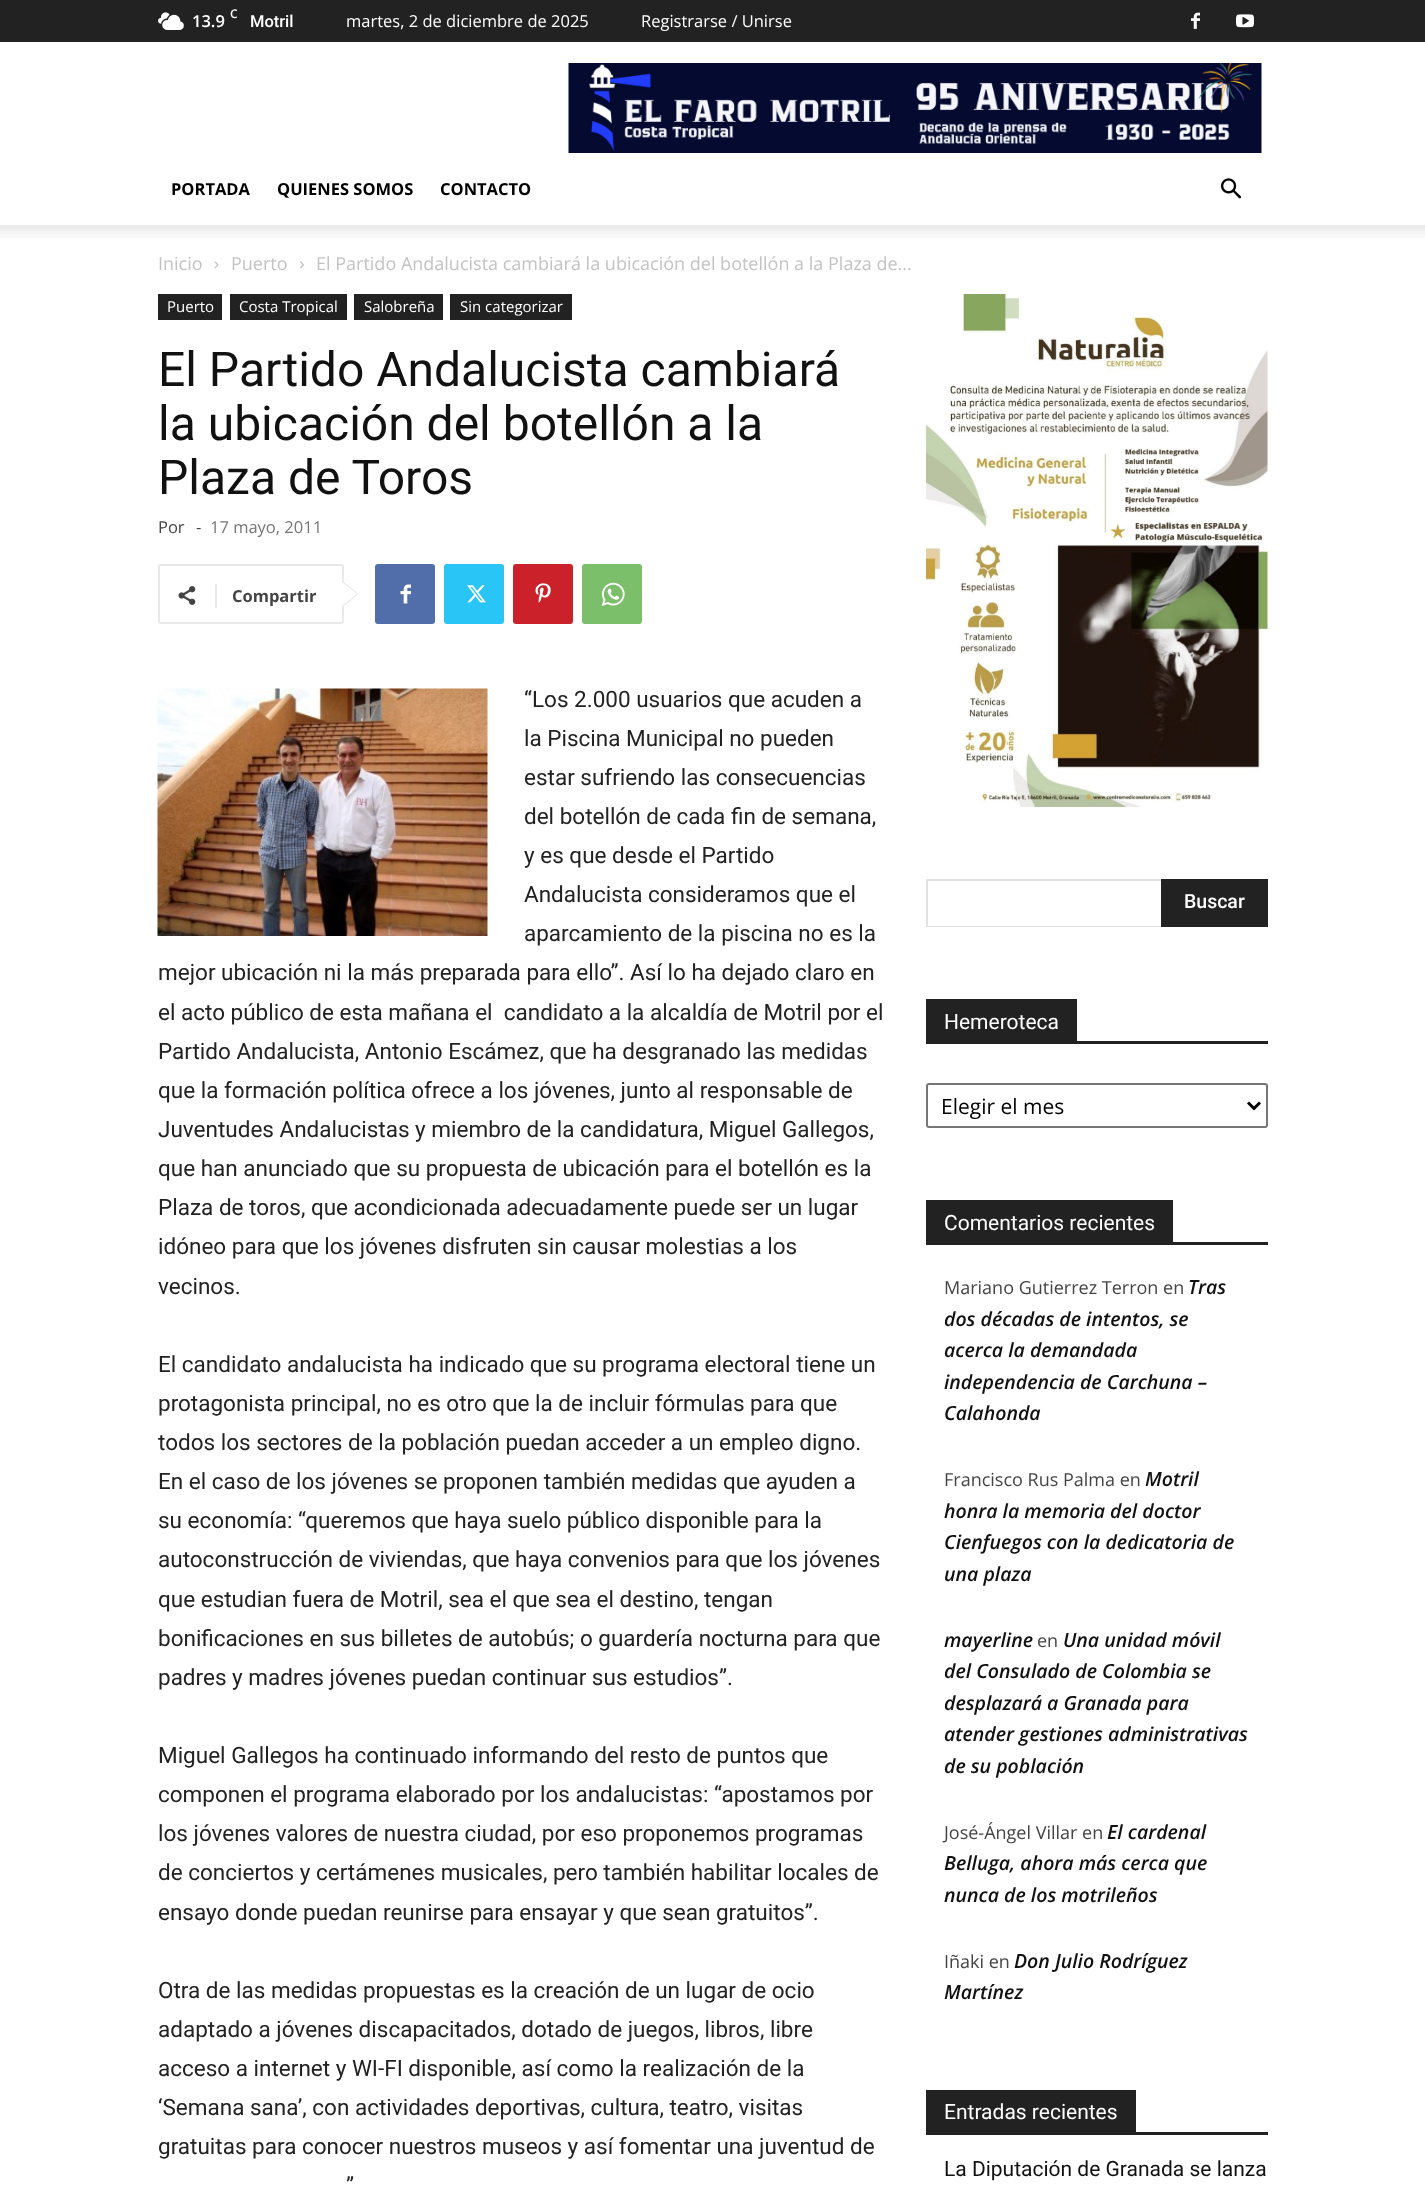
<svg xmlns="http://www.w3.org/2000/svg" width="1425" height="2187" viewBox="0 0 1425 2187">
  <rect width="100%" height="100%" fill="rgb(255,255,255)"/>
  <rect x="0" y="0" width="1425" height="42" fill="rgb(34,34,34)"/>
  <image x="158" y="12" width="26" height="18" href="pic1.png"/>
  <text x="230" y="18" font-family="Open Sans" font-size="12" font-weight="600" fill="rgb(255,255,255)">C</text>
  <text x="192" y="27" font-family="Open Sans" font-size="16.5" font-weight="600" fill="rgb(255,255,255)">13.9</text>
  <text x="250" y="27" font-family="Roboto" font-size="16.5" font-weight="500" fill="rgb(255,255,255)">Motril</text>
  <g font-family="Open Sans" font-size="16.5" fill="rgb(255,255,255)">
    <text x="346" y="27">martes, 2 de diciembre de 2025</text>
    <text x="641" y="27">Registrarse / Unirse</text>
  </g>
  <image x="1191" y="12" width="9" height="17" href="pic2.png"/>
  <image x="1236" y="14" width="18" height="14" href="pic3.png"/>
  <image x="568" y="63" width="694" height="90" href="pic4.png"/>
  <g font-family="Open Sans" font-size="16.5" font-weight="bold" fill="rgb(0,0,0)">
    <text x="171" y="195">PORTADA</text>
    <text x="277" y="195">QUIENES SOMOS</text>
    <text x="440" y="195">CONTACTO</text>
  </g>
  <image x="1221" y="178" width="20" height="21" href="pic5.png"/>
  <image x="0" y="225" width="1425" height="13" href="pic6.png"/>
  <text x="158" y="270" font-family="Open Sans" font-size="18" fill="rgb(195,195,195)">Inicio</text>
  <image x="214" y="261" width="5" height="8" href="pic7.png"/>
  <text x="231" y="270" font-family="Open Sans" font-size="18" fill="rgb(195,195,195)">Puerto</text>
  <image x="300" y="261" width="4" height="8" href="pic8.png"/>
  <text x="316" y="270" font-family="Open Sans" font-size="18" fill="rgb(195,195,195)">El Partido Andalucista cambiará la ubicación del botellón a la Plaza de...</text>
  <rect x="158" y="294" width="64" height="26" fill="rgb(34,34,34)"/>
  <text x="167" y="312" font-family="Open Sans" font-size="15" fill="rgb(255,255,255)">Puerto</text>
  <rect x="230" y="294" width="117" height="26" fill="rgb(34,34,34)"/>
  <text x="239" y="312" font-family="Open Sans" font-size="15" fill="rgb(255,255,255)">Costa Tropical</text>
  <rect x="354" y="294" width="89" height="26" fill="rgb(34,34,34)"/>
  <text x="364" y="312" font-family="Open Sans" font-size="15" fill="rgb(255,255,255)">Salobreña</text>
  <rect x="450" y="294" width="122" height="26" fill="rgb(34,34,34)"/>
  <text x="460" y="312" font-family="Open Sans" font-size="15" fill="rgb(255,255,255)">Sin categorizar</text>
  <g font-family="Roboto" font-size="48" fill="rgb(17,17,17)">
    <text>
      <tspan x="158" y="386">El Partido Andalucista cambiará</tspan>
      <tspan x="158" y="440">la ubicación del botellón a la</tspan>
      <tspan x="158" y="494">Plaza de Toros</tspan>
    </text>
  </g>
  <g font-family="Open Sans" font-size="16.5" fill="rgb(68,68,68)">
    <text x="158" y="533">Por</text>
    <text x="196" y="533">-</text>
  </g>
  <text x="210" y="533" font-family="Open Sans" font-size="16.5" fill="rgb(118,118,118)">17 mayo, 2011</text>
  <rect x="159" y="565" width="184" height="58" rx="2" fill="none" stroke="rgb(233,233,233)" stroke-width="2"/>
  <path d="M342 607.5V580.5L358.5 594Z" fill="rgb(233,233,233)"/>
  <image x="178" y="586" width="18" height="19" href="pic9.png"/>
  <rect x="215" y="584" width="2" height="24" fill="rgb(235,235,235)"/>
  <text x="232" y="602" font-family="Open Sans" font-size="16.5" font-weight="bold" fill="rgb(68,68,68)">Compartir</text>
  <path d="M342 606V582L357 594Z" fill="rgb(255,255,255)"/>
  <rect x="375" y="564" width="60" height="60" rx="3" fill="rgb(81,110,171)"/>
  <image x="400" y="584" width="11" height="20" href="pic10.png"/>
  <rect x="444" y="564" width="60" height="60" rx="3" fill="rgb(41,197,246)"/>
  <image x="467" y="585" width="19" height="18" href="pic11.png"/>
  <rect x="513" y="564" width="60" height="60" rx="3" fill="rgb(202,33,42)"/>
  <image x="535" y="583" width="16" height="20" href="pic12.png"/>
  <rect x="582" y="564" width="60" height="60" rx="3" fill="rgb(123,191,106)"/>
  <image x="601" y="582" width="24" height="24" href="pic13.png"/>
  <image x="157" y="688" width="331" height="248" href="pic14.png"/>
  <g font-family="Roboto" font-size="22.5" fill="rgb(34,34,34)">
    <text>
      <tspan x="524" y="707">“Los 2.000 usuarios que acuden a</tspan>
      <tspan x="524" y="746">la Piscina Municipal no pueden</tspan>
      <tspan x="524" y="785">estar sufriendo las consecuencias</tspan>
      <tspan x="524" y="824">del botellón de cada fin de semana,</tspan>
      <tspan x="524" y="863">y es que desde el Partido</tspan>
      <tspan x="524" y="902">Andalucista consideramos que el</tspan>
      <tspan x="524" y="941">aparcamiento de la piscina no es la</tspan>
    </text>
    <text xml:space="preserve"><tspan x="158" y="980">mejor ubicación ni la más preparada para ello”. Así lo ha dejado claro en</tspan><tspan x="158" y="1020">el acto público de esta mañana el  candidato a la alcaldía de Motril por el</tspan><tspan x="158" y="1059">Partido Andalucista, Antonio Escámez, que ha desgranado las medidas</tspan><tspan x="158" y="1098">que la formación política ofrece a los jóvenes, junto al responsable de</tspan><tspan x="158" y="1137">Juventudes Andalucistas y miembro de la candidatura, Miguel Gallegos,</tspan><tspan x="158" y="1176">que han anunciado que su propuesta de ubicación para el botellón es la</tspan><tspan x="158" y="1215">Plaza de toros, que acondicionada adecuadamente puede ser un lugar</tspan><tspan x="158" y="1254">idóneo para que los jóvenes disfruten sin causar molestias a los</tspan><tspan x="158" y="1294">vecinos.</tspan></text>
    <text>
      <tspan x="158" y="1372">El candidato andalucista ha indicado que su programa electoral tiene un</tspan>
      <tspan x="158" y="1411">protagonista principal, no es otro que la de incluir fórmulas para que</tspan>
      <tspan x="158" y="1450">todos los sectores de la población puedan acceder a un empleo digno.</tspan>
      <tspan x="158" y="1489">En el caso de los jóvenes se proponen también medidas que ayuden a</tspan>
      <tspan x="158" y="1528">su economía: “queremos que haya suelo público disponible para la</tspan>
      <tspan x="158" y="1567">autoconstrucción de viviendas, que haya convenios para que los jóvenes</tspan>
      <tspan x="158" y="1607">que estudian fuera de Motril, sea el que sea el destino, tengan</tspan>
      <tspan x="158" y="1646">bonificaciones en sus billetes de autobús; o guardería nocturna para que</tspan>
      <tspan x="158" y="1685">padres y madres jóvenes puedan continuar sus estudios”.</tspan>
    </text>
    <text>
      <tspan x="158" y="1763">Miguel Gallegos ha continuado informando del resto de puntos que</tspan>
      <tspan x="158" y="1802">componen el programa elaborado por los andalucistas: “apostamos por</tspan>
      <tspan x="158" y="1841">los jóvenes valores de nuestra ciudad, por eso proponemos programas</tspan>
      <tspan x="158" y="1880">de conciertos y certámenes musicales, pero también habilitar locales de</tspan>
      <tspan x="158" y="1920">ensayo donde puedan reunirse para ensayar y que sean gratuitos”.</tspan>
    </text>
    <text>
      <tspan x="158" y="1998">Otra de las medidas propuestas es la creación de un lugar de ocio</tspan>
      <tspan x="158" y="2037">adaptado a jóvenes discapacitados, dotado de juegos, libros, libre</tspan>
      <tspan x="158" y="2076">acceso a internet y WI-FI disponible, así como la realización de la</tspan>
      <tspan x="158" y="2115">‘Semana sana’, con actividades deportivas, cultura, teatro, visitas</tspan>
      <tspan x="158" y="2154">gratuitas para conocer nuestros museos y así fomentar una juventud de</tspan>
    </text>
    <text x="346" y="2193">”</text>
  </g>
  <image x="926" y="294" width="342" height="513" href="pic15.png"/>
  <rect x="926" y="879" width="235" height="2" fill="rgb(225,225,225)"/>
  <rect x="926" y="926" width="235" height="1" fill="rgb(225,225,225)"/>
  <rect x="926" y="879" width="2" height="48" fill="rgb(225,225,225)"/>
  <rect x="1161" y="879" width="107" height="48" fill="rgb(34,34,34)"/>
  <text x="1184" y="908" font-family="Roboto" font-size="19.5" font-weight="500" fill="rgb(255,255,255)">Buscar</text>
  <rect x="926" y="1041" width="342" height="3" fill="rgb(34,34,34)"/>
  <rect x="926" y="999" width="151" height="42" fill="rgb(34,34,34)"/>
  <text x="944" y="1029" font-family="Roboto" font-size="21" fill="rgb(255,255,255)">Hemeroteca</text>
  <rect x="927" y="1084" width="340" height="43" rx="2" fill="none" stroke="rgb(118,118,118)" stroke-width="2"/>
  <path d="M1248 1102.5L1254 1108.5L1260 1102.5" fill="none" stroke="rgb(0,0,0)" stroke-width="3"/>
  <text x="941" y="1114" font-family="Open Sans" font-size="21" fill="rgb(0,0,0)">Elegir el mes</text>
  <rect x="926" y="1242" width="342" height="3" fill="rgb(34,34,34)"/>
  <rect x="926" y="1200" width="247" height="42" fill="rgb(34,34,34)"/>
  <text x="944" y="1230" font-family="Roboto" font-size="21" fill="rgb(255,255,255)">Comentarios recientes</text>
  <text x="944" y="1294" font-family="Open Sans" font-size="18" fill="rgb(68,68,68)">Mariano Gutierrez Terron en</text>
  <g font-family="Open Sans" font-size="19.5" font-weight="600" font-style="italic" fill="rgb(17,17,17)">
    <text x="1188" y="1294">Tras</text>
    <text>
      <tspan x="944" y="1326">dos décadas de intentos, se</tspan>
      <tspan x="944" y="1357">acerca la demandada</tspan>
      <tspan x="944" y="1389">independencia de Carchuna –</tspan>
      <tspan x="944" y="1420">Calahonda</tspan>
    </text>
  </g>
  <text x="944" y="1486" font-family="Open Sans" font-size="18" fill="rgb(68,68,68)">Francisco Rus Palma en</text>
  <g font-family="Open Sans" font-size="19.5" font-weight="600" font-style="italic" fill="rgb(17,17,17)">
    <text x="1145" y="1486">Motril</text>
    <text>
      <tspan x="944" y="1518">honra la memoria del doctor</tspan>
      <tspan x="944" y="1549">Cienfuegos con la dedicatoria de</tspan>
      <tspan x="944" y="1581">una plaza</tspan>
    </text>
    <text x="944" y="1647">mayerline</text>
  </g>
  <text x="1037" y="1647" font-family="Open Sans" font-size="18" fill="rgb(68,68,68)">en</text>
  <g font-family="Open Sans" font-size="19.5" font-weight="600" font-style="italic" fill="rgb(17,17,17)">
    <text x="1063" y="1647">Una unidad móvil</text>
    <text>
      <tspan x="944" y="1678">del Consulado de Colombia se</tspan>
      <tspan x="944" y="1710">desplazará a Granada para</tspan>
      <tspan x="944" y="1741">atender gestiones administrativas</tspan>
      <tspan x="944" y="1773">de su población</tspan>
    </text>
  </g>
  <text x="944" y="1839" font-family="Open Sans" font-size="18" fill="rgb(68,68,68)">José-Ángel Villar en</text>
  <g font-family="Open Sans" font-size="19.5" font-weight="600" font-style="italic" fill="rgb(17,17,17)">
    <text x="1107" y="1839">El cardenal</text>
    <text>
      <tspan x="944" y="1870">Belluga, ahora más cerca que</tspan>
      <tspan x="944" y="1902">nunca de los motrileños</tspan>
    </text>
  </g>
  <text x="944" y="1968" font-family="Open Sans" font-size="18" fill="rgb(68,68,68)">Iñaki en</text>
  <g font-family="Open Sans" font-size="19.5" font-weight="600" font-style="italic" fill="rgb(17,17,17)">
    <text x="1014" y="1968">Don Julio Rodríguez</text>
    <text x="944" y="1999">Martínez</text>
  </g>
  <rect x="926" y="2132" width="342" height="3" fill="rgb(34,34,34)"/>
  <rect x="926" y="2090" width="210" height="42" fill="rgb(34,34,34)"/>
  <text x="944" y="2119" font-family="Roboto" font-size="21" fill="rgb(255,255,255)">Entradas recientes</text>
  <text x="944" y="2176" font-family="Roboto" font-size="21" fill="rgb(17,17,17)">La Diputación de Granada se lanza</text>
</svg>
